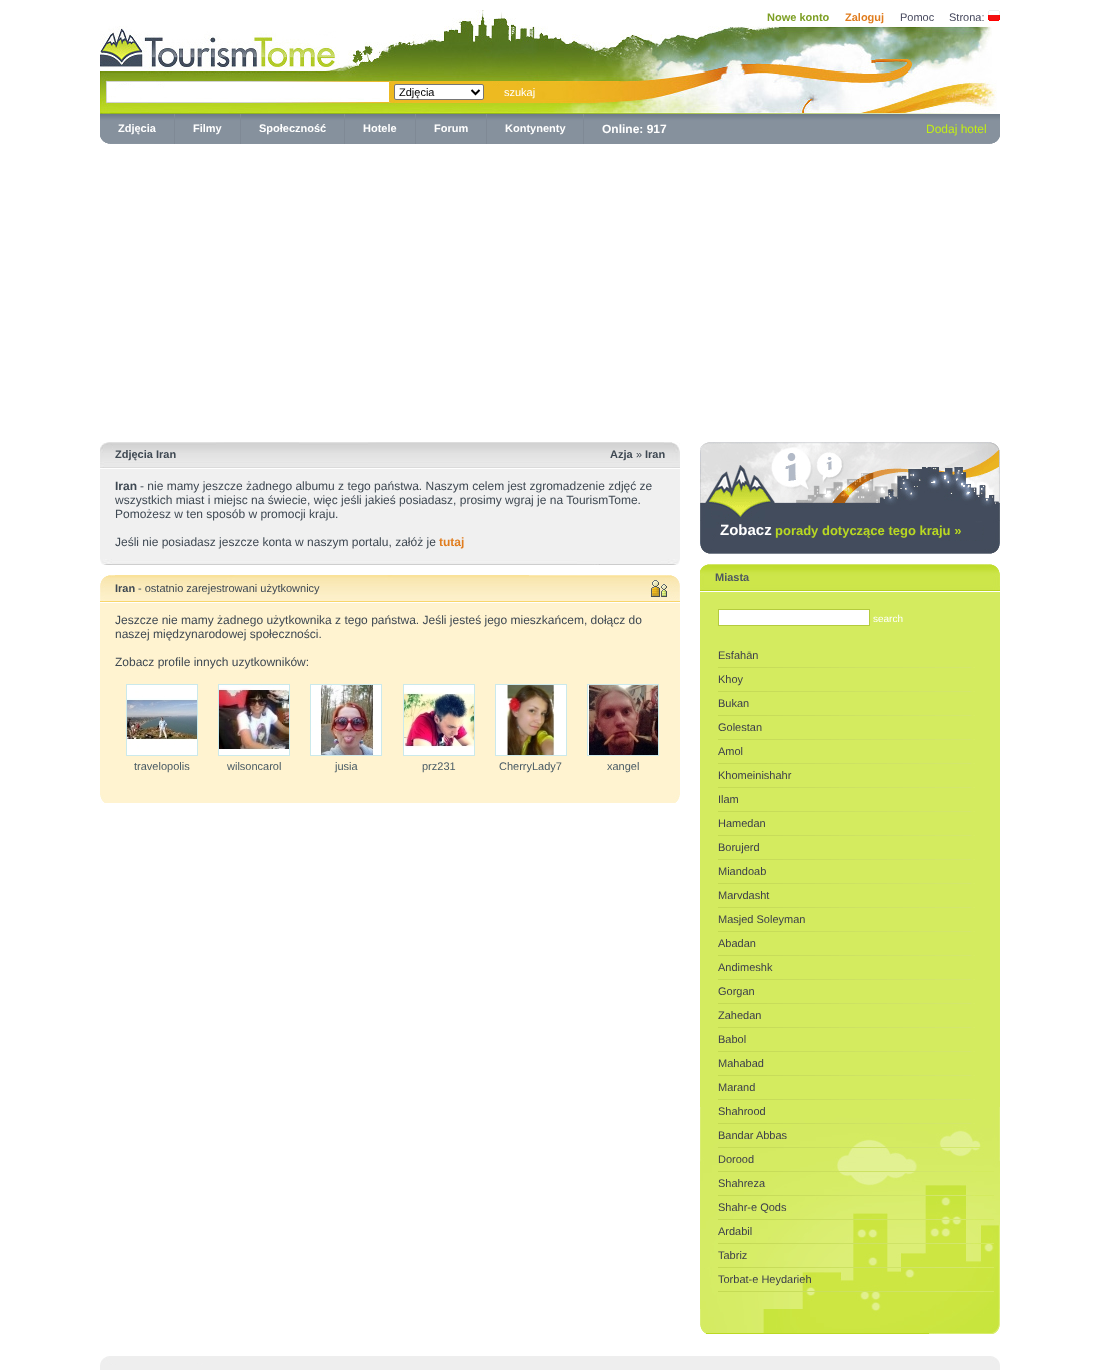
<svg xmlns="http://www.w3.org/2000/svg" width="1100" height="1370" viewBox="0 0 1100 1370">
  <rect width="100%" height="100%" fill="rgb(255,255,255)"/>
  <image x="100" y="10" width="892" height="62" href="pic1.png"/>
  <text x="767" y="21" font-family="Liberation Sans" font-size="11" font-weight="bold" fill="rgb(125,159,36)">Nowe konto</text>
  <text x="845" y="21" font-family="Liberation Sans" font-size="11" font-weight="bold" fill="rgb(224,125,31)">Zaloguj</text>
  <g font-family="Liberation Sans" font-size="11" fill="rgb(70,72,93)">
    <text x="900" y="21">Pomoc</text>
    <text x="949" y="21">Strona:</text>
  </g>
  <image x="988" y="10" width="12" height="11" href="pic2.png"/>
  <image x="100" y="26" width="236" height="42" href="pic3.png"/>
  <image x="100" y="72" width="897" height="41" href="pic4.png"/>
  <rect x="394.5" y="84.5" width="89" height="15" rx="1.5" fill="rgb(255,255,255)" stroke="rgb(118,118,118)"/>
  <path d="M471.5 90L475.5 94L479.5 90" fill="none" stroke="rgb(0,0,0)" stroke-width="2"/>
  <text x="399" y="96" font-family="Liberation Sans" font-size="11" fill="rgb(0,0,0)">Zdjęcia</text>
  <text x="504" y="96" font-family="Liberation Sans" font-size="11" fill="rgb(255,255,255)">szukaj</text>
  <image x="100" y="113" width="900" height="31" href="pic5.png"/>
  <text x="118" y="132" font-family="Liberation Sans" font-size="11" font-weight="bold" fill="rgb(255,255,255)">Zdjęcia</text>
  <rect x="174" y="114" width="1" height="30" fill="rgb(127,137,149)"/>
  <text x="193" y="132" font-family="Liberation Sans" font-size="11" font-weight="bold" fill="rgb(255,255,255)">Filmy</text>
  <rect x="240" y="114" width="1" height="30" fill="rgb(127,137,149)"/>
  <text x="259" y="132" font-family="Liberation Sans" font-size="11" font-weight="bold" fill="rgb(255,255,255)">Społeczność</text>
  <rect x="344" y="114" width="1" height="30" fill="rgb(127,137,149)"/>
  <text x="363" y="132" font-family="Liberation Sans" font-size="11" font-weight="bold" fill="rgb(255,255,255)">Hotele</text>
  <rect x="415" y="114" width="1" height="30" fill="rgb(127,137,149)"/>
  <text x="434" y="132" font-family="Liberation Sans" font-size="11" font-weight="bold" fill="rgb(255,255,255)">Forum</text>
  <rect x="486" y="114" width="1" height="30" fill="rgb(127,137,149)"/>
  <text x="505" y="132" font-family="Liberation Sans" font-size="11" font-weight="bold" fill="rgb(255,255,255)">Kontynenty</text>
  <rect x="583" y="114" width="1" height="30" fill="rgb(127,137,149)"/>
  <text x="602" y="133" font-family="Liberation Sans" font-size="12" font-weight="bold" fill="rgb(255,255,255)">Online: 917</text>
  <text x="926" y="133" font-family="Liberation Sans" font-size="12" fill="rgb(193,236,22)">Dodaj hotel</text>
  <image x="100" y="442" width="580" height="26" href="pic6.png"/>
  <g font-family="Liberation Sans" font-size="11" font-weight="bold" fill="rgb(62,72,82)">
    <text x="115" y="458">Zdjęcia Iran</text>
    <text x="610" y="458">Azja</text>
  </g>
  <text x="636" y="458" font-family="Liberation Sans" font-size="11" fill="rgb(62,72,82)">»</text>
  <text x="645" y="458" font-family="Liberation Sans" font-size="11" font-weight="bold" fill="rgb(62,72,82)">Iran</text>
  <rect x="100" y="469" width="580" height="90" fill="rgb(240,240,240)"/>
  <text x="115" y="490" font-family="Liberation Sans" font-size="12" font-weight="bold" fill="rgb(62,72,82)">Iran</text>
  <g font-family="Liberation Sans" font-size="12" fill="rgb(62,72,82)">
    <text x="140" y="490">- nie mamy jeszcze żadnego albumu z tego państwa. Naszym celem jest zgromadzenie zdjęć ze</text>
    <text>
      <tspan x="115" y="504">wszystkich miast i miejsc na świecie, więc jeśli jakieś posiadasz, prosimy wgraj je na TourismTome.</tspan>
      <tspan x="115" y="518">Pomożesz w ten sposób w promocji kraju.</tspan>
    </text>
    <text x="115" y="546">Jeśli nie posiadasz jeszcze konta w naszym portalu, załóż je</text>
  </g>
  <text x="439" y="546" font-family="Liberation Sans" font-size="12" font-weight="bold" fill="rgb(224,125,31)">tutaj</text>
  <image x="100" y="559" width="580" height="6" href="pic7.png"/>
  <image x="100" y="575" width="580" height="27" href="pic8.png"/>
  <text x="115" y="592" font-family="Liberation Sans" font-size="11" font-weight="bold" fill="rgb(62,72,82)">Iran</text>
  <text x="138" y="592" font-family="Liberation Sans" font-size="11" fill="rgb(62,72,82)">- ostatnio zarejestrowani użytkownicy</text>
  <rect x="100" y="603" width="580" height="192" fill="rgb(255,243,208)"/>
  <g font-family="Liberation Sans" font-size="12" fill="rgb(62,72,82)">
    <text>
      <tspan x="115" y="624">Jeszcze nie mamy żadnego użytkownika z tego państwa. Jeśli jesteś jego mieszkańcem, dołącz do</tspan>
      <tspan x="115" y="638">naszej międzynarodowej społeczności.</tspan>
    </text>
    <text x="115" y="666">Zobacz profile innych uzytkowników:</text>
  </g>
  <rect x="126.5" y="684.5" width="71" height="71" fill="none" stroke="rgb(203,233,235)"/>
  <image x="127" y="685" width="70" height="70" href="pic9.png"/>
  <text x="134" y="770" font-family="Liberation Sans" font-size="11" fill="rgb(72,90,100)">travelopolis</text>
  <rect x="218.5" y="684.5" width="71" height="71" fill="none" stroke="rgb(203,233,235)"/>
  <image x="219" y="685" width="70" height="70" href="pic10.png"/>
  <text x="227" y="770" font-family="Liberation Sans" font-size="11" fill="rgb(72,90,100)">wilsoncarol</text>
  <rect x="310.5" y="684.5" width="71" height="71" fill="none" stroke="rgb(203,233,235)"/>
  <image x="311" y="685" width="70" height="70" href="pic11.png"/>
  <text x="335" y="770" font-family="Liberation Sans" font-size="11" fill="rgb(72,90,100)">jusia</text>
  <rect x="403.5" y="684.5" width="71" height="71" fill="none" stroke="rgb(203,233,235)"/>
  <image x="404" y="685" width="70" height="70" href="pic12.png"/>
  <text x="422" y="770" font-family="Liberation Sans" font-size="11" fill="rgb(72,90,100)">prz231</text>
  <rect x="495.5" y="684.5" width="71" height="71" fill="none" stroke="rgb(203,233,235)"/>
  <image x="496" y="685" width="70" height="70" href="pic13.png"/>
  <text x="499" y="770" font-family="Liberation Sans" font-size="11" fill="rgb(72,90,100)">CherryLady7</text>
  <rect x="587.5" y="684.5" width="71" height="71" fill="none" stroke="rgb(203,233,235)"/>
  <image x="588" y="685" width="70" height="70" href="pic14.png"/>
  <text x="607" y="770" font-family="Liberation Sans" font-size="11" fill="rgb(72,90,100)">xangel</text>
  <image x="100" y="795" width="580" height="8" href="pic15.png"/>
  <image x="700" y="442" width="300" height="112" href="pic16.png"/>
  <text x="720" y="535" font-family="Liberation Sans" font-size="15" font-weight="bold" fill="rgb(255,255,255)">Zobacz</text>
  <text x="775" y="535" font-family="Liberation Sans" font-size="13" font-weight="bold" fill="rgb(185,216,34)">porady dotyczące tego kraju »</text>
  <image x="700" y="564" width="300" height="27" href="pic17.png"/>
  <text x="715" y="581" font-family="Liberation Sans" font-size="11" font-weight="bold" fill="rgb(79,88,97)">Miasta</text>
  <rect x="700" y="592" width="300" height="515" fill="rgb(212,235,95)"/>
  <image x="700" y="1107" width="300" height="227" href="pic18.png"/>
  <rect x="718.5" y="609.5" width="151" height="16" fill="rgb(255,255,255)" stroke="rgb(180,203,61)"/>
  <text x="873" y="622" font-family="Liberation Sans" font-size="10" fill="rgb(255,255,255)">search</text>
  <text x="718" y="659" font-family="Liberation Sans" font-size="11" fill="rgb(60,62,75)">Esfahān</text>
  <image x="718" y="667" width="257" height="1" href="pic19.png"/>
  <text x="718" y="683" font-family="Liberation Sans" font-size="11" fill="rgb(60,62,75)">Khoy</text>
  <image x="718" y="691" width="257" height="1" href="pic19.png"/>
  <text x="718" y="707" font-family="Liberation Sans" font-size="11" fill="rgb(60,62,75)">Bukan</text>
  <image x="718" y="715" width="257" height="1" href="pic19.png"/>
  <text x="718" y="731" font-family="Liberation Sans" font-size="11" fill="rgb(60,62,75)">Golestan</text>
  <image x="718" y="739" width="257" height="1" href="pic19.png"/>
  <text x="718" y="755" font-family="Liberation Sans" font-size="11" fill="rgb(60,62,75)">Amol</text>
  <image x="718" y="763" width="257" height="1" href="pic19.png"/>
  <text x="718" y="779" font-family="Liberation Sans" font-size="11" fill="rgb(60,62,75)">Khomeinishahr</text>
  <image x="718" y="787" width="257" height="1" href="pic19.png"/>
  <text x="718" y="803" font-family="Liberation Sans" font-size="11" fill="rgb(60,62,75)">Ilam</text>
  <image x="718" y="811" width="257" height="1" href="pic19.png"/>
  <text x="718" y="827" font-family="Liberation Sans" font-size="11" fill="rgb(60,62,75)">Hamedan</text>
  <image x="718" y="835" width="257" height="1" href="pic19.png"/>
  <text x="718" y="851" font-family="Liberation Sans" font-size="11" fill="rgb(60,62,75)">Borujerd</text>
  <image x="718" y="859" width="257" height="1" href="pic19.png"/>
  <text x="718" y="875" font-family="Liberation Sans" font-size="11" fill="rgb(60,62,75)">Miandoab</text>
  <image x="718" y="883" width="257" height="1" href="pic19.png"/>
  <text x="718" y="899" font-family="Liberation Sans" font-size="11" fill="rgb(60,62,75)">Marvdasht</text>
  <image x="718" y="907" width="257" height="1" href="pic19.png"/>
  <text x="718" y="923" font-family="Liberation Sans" font-size="11" fill="rgb(60,62,75)">Masjed Soleyman</text>
  <image x="718" y="931" width="257" height="1" href="pic19.png"/>
  <text x="718" y="947" font-family="Liberation Sans" font-size="11" fill="rgb(60,62,75)">Abadan</text>
  <image x="718" y="955" width="257" height="1" href="pic19.png"/>
  <text x="718" y="971" font-family="Liberation Sans" font-size="11" fill="rgb(60,62,75)">Andimeshk</text>
  <image x="718" y="979" width="257" height="1" href="pic19.png"/>
  <text x="718" y="995" font-family="Liberation Sans" font-size="11" fill="rgb(60,62,75)">Gorgan</text>
  <image x="718" y="1003" width="257" height="1" href="pic19.png"/>
  <text x="718" y="1019" font-family="Liberation Sans" font-size="11" fill="rgb(60,62,75)">Zahedan</text>
  <image x="718" y="1027" width="257" height="1" href="pic19.png"/>
  <text x="718" y="1043" font-family="Liberation Sans" font-size="11" fill="rgb(60,62,75)">Babol</text>
  <image x="718" y="1051" width="257" height="1" href="pic19.png"/>
  <text x="718" y="1067" font-family="Liberation Sans" font-size="11" fill="rgb(60,62,75)">Mahabad</text>
  <image x="718" y="1075" width="257" height="1" href="pic19.png"/>
  <text x="718" y="1091" font-family="Liberation Sans" font-size="11" fill="rgb(60,62,75)">Marand</text>
  <image x="718" y="1099" width="257" height="1" href="pic19.png"/>
  <text x="718" y="1115" font-family="Liberation Sans" font-size="11" fill="rgb(60,62,75)">Shahrood</text>
  <image x="718" y="1123" width="257" height="1" href="pic19.png"/>
  <text x="718" y="1139" font-family="Liberation Sans" font-size="11" fill="rgb(60,62,75)">Bandar Abbas</text>
  <image x="718" y="1147" width="265" height="1" href="pic20.png"/>
  <text x="718" y="1163" font-family="Liberation Sans" font-size="11" fill="rgb(60,62,75)">Dorood</text>
  <image x="718" y="1171" width="276" height="1" href="pic21.png"/>
  <text x="718" y="1187" font-family="Liberation Sans" font-size="11" fill="rgb(60,62,75)">Shahreza</text>
  <image x="718" y="1195" width="276" height="1" href="pic21.png"/>
  <text x="718" y="1211" font-family="Liberation Sans" font-size="11" fill="rgb(60,62,75)">Shahr-e Qods</text>
  <image x="718" y="1219" width="276" height="1" href="pic21.png"/>
  <text x="718" y="1235" font-family="Liberation Sans" font-size="11" fill="rgb(60,62,75)">Ardabil</text>
  <image x="718" y="1243" width="276" height="1" href="pic21.png"/>
  <text x="718" y="1259" font-family="Liberation Sans" font-size="11" fill="rgb(60,62,75)">Tabriz</text>
  <image x="718" y="1267" width="276" height="1" href="pic21.png"/>
  <text x="718" y="1283" font-family="Liberation Sans" font-size="11" fill="rgb(60,62,75)">Torbat-e Heydarieh</text>
  <image x="718" y="1291" width="276" height="1" href="pic21.png"/>
  <image x="100" y="1356" width="900" height="9" href="pic22.png"/>
  <rect x="100" y="1365" width="900" height="5" fill="rgb(238,238,238)"/>
</svg>
